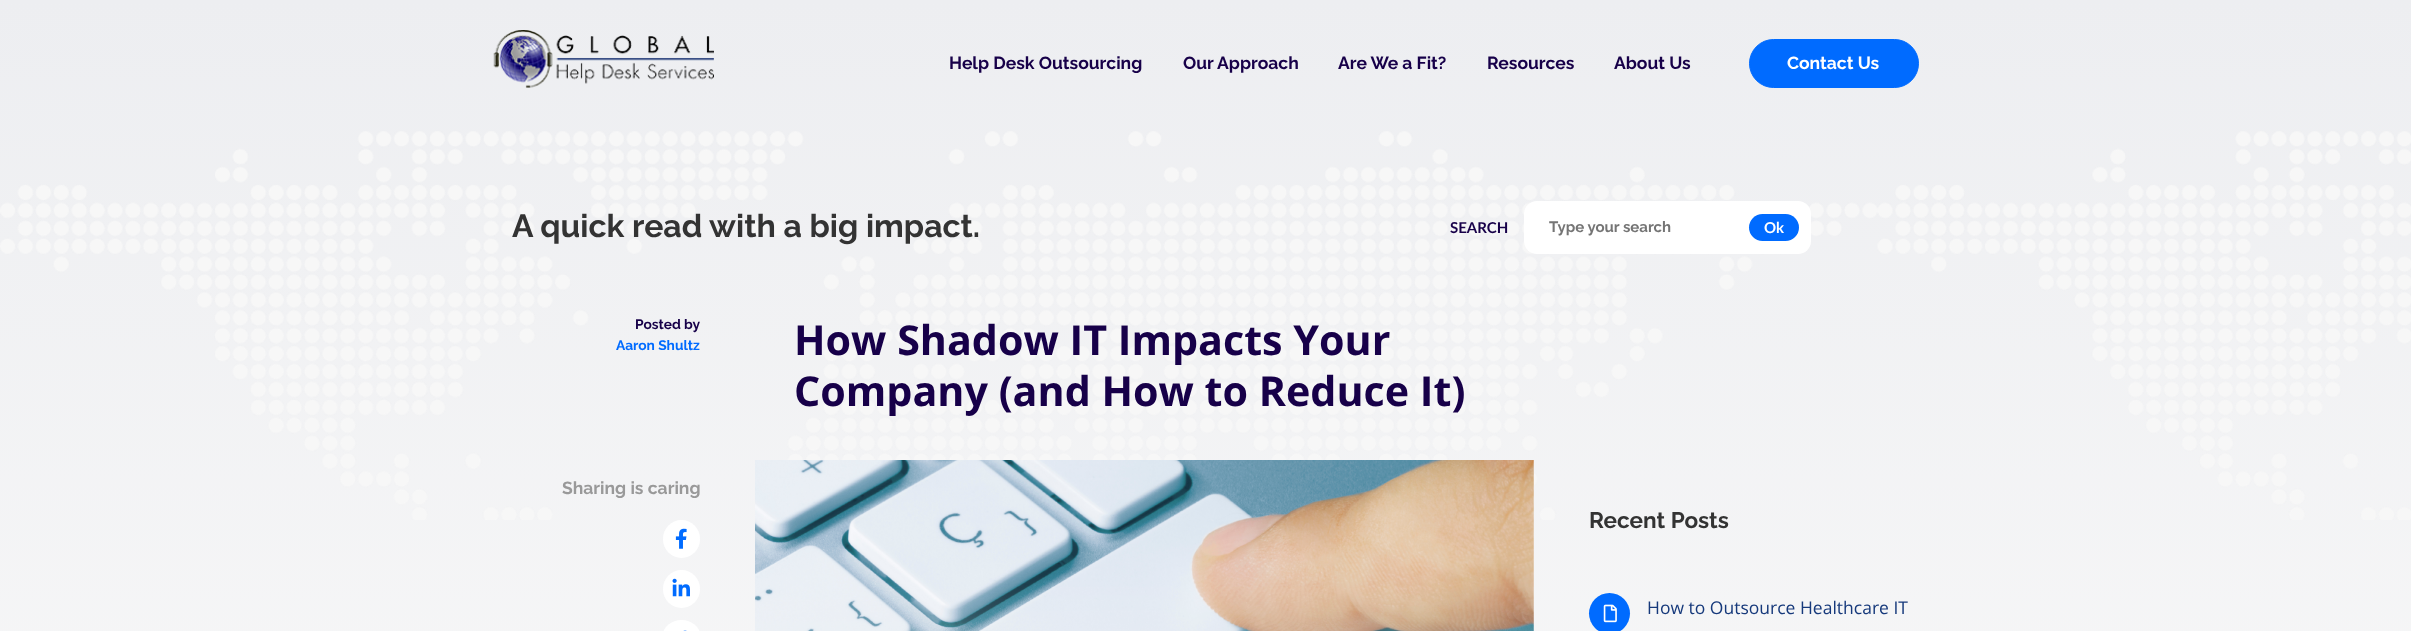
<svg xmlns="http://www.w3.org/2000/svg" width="2411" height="631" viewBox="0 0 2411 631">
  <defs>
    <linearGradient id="g1" gradientUnits="userSpaceOnUse" x1="1206" y1="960" x2="1206" y2="0"><stop offset="0" stop-color="rgb(249,249,249)"/><stop offset="1" stop-color="rgb(237,238,241)"/></linearGradient>
  </defs>
  <rect width="100%" height="100%" fill="rgb(255,255,255)"/>
  <rect x="0" y="0" width="2411" height="631" fill="url(#g1)"/>
  <image x="493" y="30" width="221" height="58" href="pic1.png"/>
  <g font-family="Raleway" font-size="17.5" font-weight="bold" fill="rgb(23,0,73)">
    <text x="949" y="69">Help Desk Outsourcing</text>
    <text x="1183" y="69">Our Approach</text>
    <text x="1338" y="69">Are We a Fit?</text>
    <text x="1487" y="69">Resources</text>
    <text x="1614" y="69">About Us</text>
  </g>
  <rect x="1749.5" y="39.5" width="169" height="48" rx="24" fill="rgb(0,107,255)" stroke="rgb(0,107,255)"/>
  <text x="1787" y="69" font-family="Raleway" font-size="17.5" font-weight="bold" fill="rgb(255,255,255)">Contact Us</text>
  <image x="0" y="131" width="2411" height="389" href="pic2.png"/>
  <text x="512" y="237" font-family="Raleway" font-size="32" font-weight="bold" fill="rgb(51,51,51)">A quick read with a big impact.</text>
  <text x="1450" y="233" font-family="Lato" font-size="15" font-weight="bold" fill="rgb(23,0,73)">SEARCH</text>
  <rect x="1524" y="201" width="287" height="53" rx="13" fill="rgb(255,255,255)"/>
  <text x="1549" y="232" font-family="Raleway" font-size="15" font-weight="bold" fill="rgb(117,117,117)">Type your search</text>
  <rect x="1749" y="214" width="50" height="27" rx="13.5" fill="rgb(0,107,255)"/>
  <text x="1764" y="233" font-family="Lato" font-size="15" font-weight="bold" fill="rgb(255,255,255)">Ok</text>
  <text x="635" y="329" font-family="Raleway" font-size="13.75" font-weight="bold" fill="rgb(23,0,73)">Posted by</text>
  <text x="616" y="350" font-family="Raleway" font-size="13.75" font-weight="bold" fill="rgb(0,107,255)">Aaron Shultz</text>
  <text x="562" y="494" font-family="Raleway" font-size="17.5" font-weight="bold" fill="rgb(153,153,153)">Sharing is caring</text>
  <rect x="663" y="520" width="37" height="38" rx="18.5" fill="rgb(255,255,255)"/>
  <image x="675" y="528" width="12" height="21" href="pic3.png"/>
  <rect x="663" y="570" width="37" height="38" rx="18.5" fill="rgb(255,255,255)"/>
  <image x="672" y="578" width="18" height="19" href="pic4.png"/>
  <rect x="663" y="620" width="37" height="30" rx="18.5" fill="rgb(255,255,255)"/>
  <image x="683" y="630" width="4" height="1" href="pic5.png"/>
  <g font-family="Open Sans" font-size="41.25" font-weight="bold" fill="rgb(23,0,73)">
    <text>
      <tspan x="794" y="355">How Shadow IT Impacts Your</tspan>
      <tspan x="794" y="406">Company (and How to Reduce It)</tspan>
    </text>
  </g>
  <image x="755" y="460" width="779" height="171" href="pic6.png"/>
  <text x="1589" y="528" font-family="Raleway" font-size="22.5" font-weight="bold" fill="rgb(51,51,51)">Recent Posts</text>
  <circle cx="1609.5" cy="613.5" r="20.5" fill="rgb(0,107,255)"/>
  <image x="1603" y="604" width="14" height="19" href="pic7.png"/>
  <text x="1647" y="614" font-family="Open Sans" font-size="17.5" fill="rgb(22,57,123)">How to Outsource Healthcare IT</text>
</svg>
